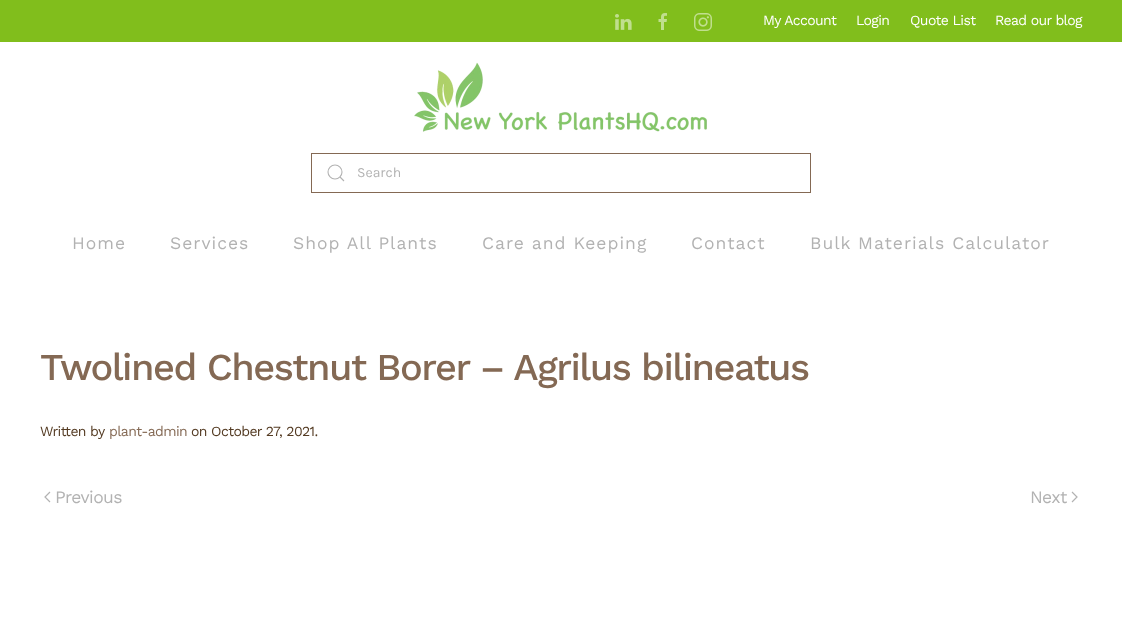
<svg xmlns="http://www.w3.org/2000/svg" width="1122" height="617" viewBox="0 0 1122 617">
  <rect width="100%" height="100%" fill="rgb(255,255,255)"/>
  <rect x="0" y="0" width="1122" height="42" fill="rgb(129,190,28)"/>
  <image x="615" y="14" width="17" height="16" href="pic1.png"/>
  <image x="658" y="13" width="9" height="17" href="pic2.png"/>
  <image x="694" y="13" width="18" height="18" href="pic3.png"/>
  <g font-family="Work Sans" font-size="14" letter-spacing="-0.6" fill="rgb(255,255,255)">
    <text x="763" y="25">My Account</text>
    <text x="856" y="25">Login</text>
    <text x="910" y="25">Quote List</text>
    <text x="995" y="25">Read our blog</text>
  </g>
  <image x="414" y="62" width="293" height="70" href="pic4.png"/>
  <rect x="311.5" y="153.5" width="499" height="39" fill="none" stroke="rgb(132,105,84)"/>
  <circle cx="335" cy="172" r="7" fill="none" stroke="rgb(178,178,178)" stroke-width="1.1"/>
  <path d="M340 177L344 181Z" fill="none" stroke="rgb(178,178,178)" stroke-width="1.1"/>
  <text x="357" y="177" font-family="Karla" font-size="14" fill="rgb(178,178,178)">Search</text>
  <g font-family="Work Sans" font-size="17.5" letter-spacing="1" fill="rgb(178,178,178)">
    <text x="72" y="249">Home</text>
    <text x="170" y="249">Services</text>
    <text x="293" y="249">Shop All Plants</text>
    <text x="482" y="249">Care and Keeping</text>
    <text x="691" y="249">Contact</text>
    <text x="810" y="249">Bulk Materials Calculator</text>
  </g>
  <text x="40" y="380" font-family="Work Sans" font-size="38" font-weight="500" letter-spacing="-1.5" fill="rgb(132,105,84)">Twolined Chestnut Borer – Agrilus bilineatus</text>
  <text x="40" y="436" font-family="Work Sans" font-size="14" letter-spacing="-0.6" fill="rgb(84,59,35)">Written by</text>
  <text x="109" y="436" font-family="Work Sans" font-size="14" letter-spacing="-0.6" fill="rgb(132,105,84)">plant-admin</text>
  <text x="191" y="436" font-family="Work Sans" font-size="14" letter-spacing="-0.6" fill="rgb(84,59,35)">on October 27, 2021.</text>
  <path d="M50 492L45 497L50 502" fill="none" stroke="rgb(178,178,178)" stroke-width="1.2"/>
  <g font-family="Work Sans" font-size="17.5" letter-spacing="-0.6" fill="rgb(178,178,178)">
    <text x="55" y="503">Previous</text>
    <text x="1030" y="503">Next</text>
  </g>
  <path d="M1072 492L1077 497L1072 502" fill="none" stroke="rgb(178,178,178)" stroke-width="1.2"/>
</svg>
